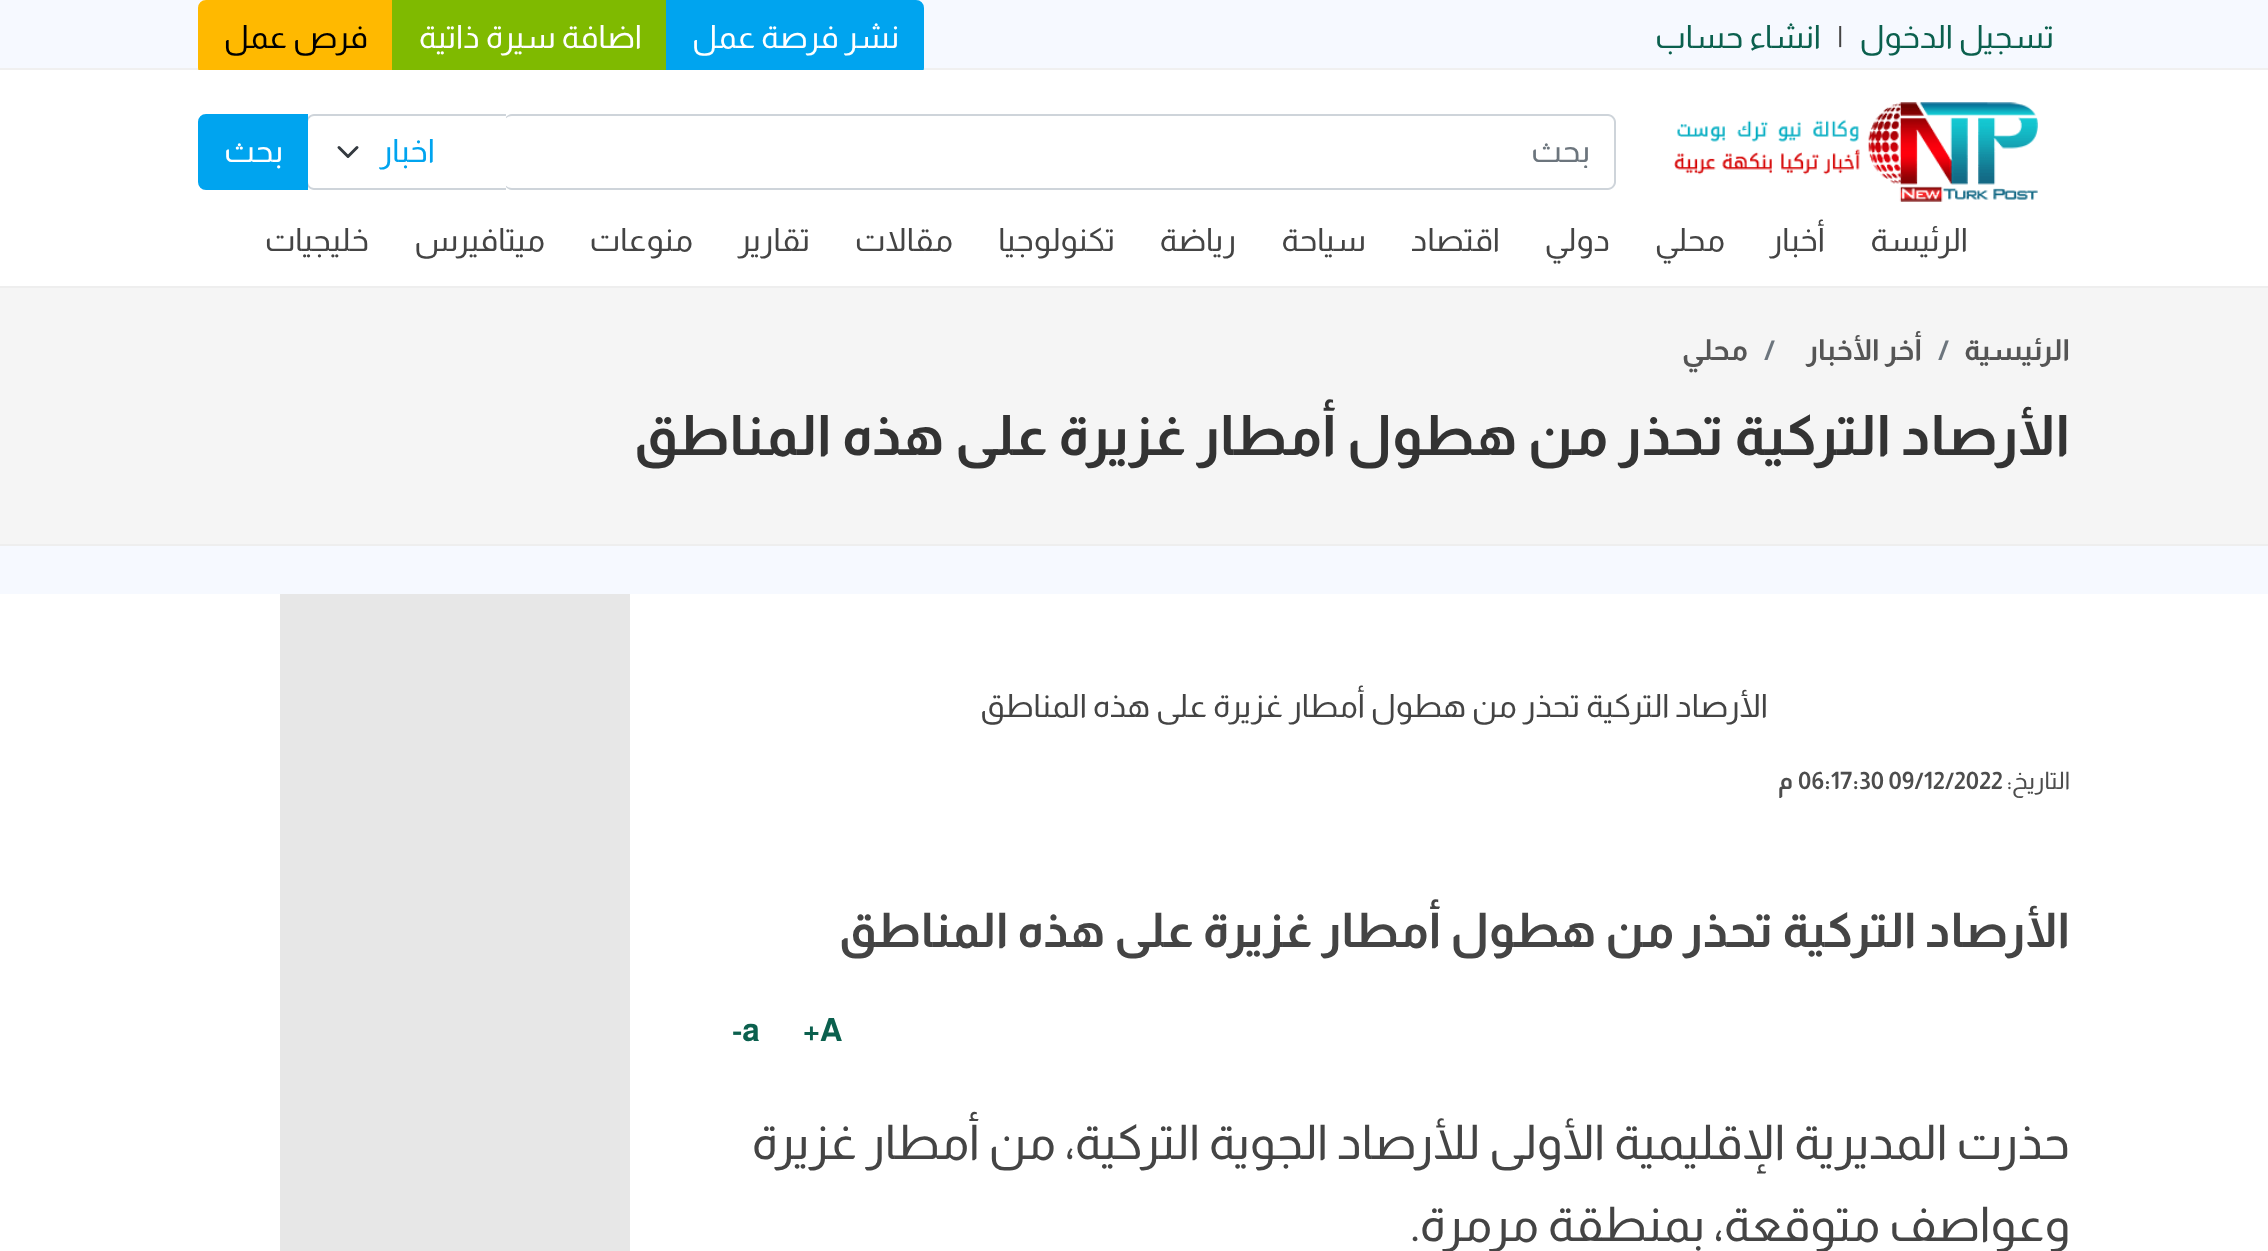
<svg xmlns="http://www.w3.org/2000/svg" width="2268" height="1251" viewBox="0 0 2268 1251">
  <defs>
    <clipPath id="clip1"><rect x="558" y="134" width="1032" height="34"/></clipPath>
  </defs>
  <rect width="100%" height="100%" fill="rgb(246,249,255)"/>
  <rect x="0" y="68" width="2268" height="2" fill="rgb(240,240,240)"/>
  <text x="2054" y="48" font-family="Almarai" font-size="32" direction="rtl" fill="rgb(11,96,78)">تسجيل الدخول</text>
  <text x="1837" y="48" font-family="Almarai" font-size="32" fill="rgb(68,68,68)">|</text>
  <text x="1821" y="48" font-family="Almarai" font-size="32" direction="rtl" fill="rgb(11,96,78)">انشاء حساب</text>
  <path d="M667 1H916C920 1 923 4 923 8V68C923 72 920 75 916 75H667Z" fill="rgb(0,164,239)" stroke="rgb(0,164,239)" stroke-width="2"/>
  <text x="899" y="48" font-family="Almarai" font-size="32" direction="rtl" fill="rgb(255,255,255)">نشر فرصة عمل</text>
  <path d="M206 1H393V75H206C202 75 199 72 199 68V8C199 4 202 1 206 1Z" fill="rgb(255,185,0)" stroke="rgb(255,185,0)" stroke-width="2"/>
  <rect x="392" y="0" width="274" height="70" fill="rgb(127,186,0)"/>
  <text x="642" y="48" font-family="Almarai" font-size="32" direction="rtl" fill="rgb(255,255,255)">اضافة سيرة ذاتية</text>
  <text x="368" y="48" font-family="Almarai" font-size="32" direction="rtl" fill="rgb(0,0,0)">فرص عمل</text>
  <rect x="0" y="70" width="2268" height="216" fill="rgb(255,255,255)"/>
  <rect x="0" y="286" width="2268" height="2" fill="rgb(238,238,238)"/>
  <image x="1674" y="102" width="364" height="100" href="pic1.png"/>
  <path d="M512 114H1608C1612 114 1616 118 1616 122V182C1616 186 1612 190 1608 190H512C508 190 504 186 504 182V122C504 118 508 114 512 114ZM512 116H1608C1611 116 1614 119 1614 122V182C1614 185 1611 188 1608 188H512C508 188 504 185 504 182V122C504 119 508 116 512 116Z" fill="rgb(206,212,218)" fill-rule="evenodd"/>
  <g clip-path="url(#clip1)">
    <text x="1590" y="162" font-family="Almarai" font-size="32" direction="rtl" fill="rgb(108,117,125)">بحث</text>
  </g>
  <path d="M314 114H506V190H314C309.5 190 306 186.5 306 182V122C306 117.5 309.5 114 314 114Z" fill="rgb(255,255,255)"/>
  <path d="M339 147.5L348 156.5L357 147.5" fill="none" stroke="rgb(52,58,64)" stroke-width="3" stroke-linecap="round" stroke-linejoin="round"/>
  <path d="M314 114H506V190H314C310 190 306 186 306 182V122C306 118 310 114 314 114ZM314 116H506V188H314C311 188 308 185 308 182V122C308 119 311 116 314 116Z" fill="rgb(206,212,218)" fill-rule="evenodd"/>
  <text x="435" y="162" font-family="Almarai" font-size="32" direction="rtl" fill="rgb(0,164,239)">اخبار</text>
  <path d="M206 115H307V189H206C202 189 199 186 199 182V122C199 118 202 115 206 115Z" fill="rgb(0,164,239)" stroke="rgb(0,164,239)" stroke-width="2"/>
  <text x="283" y="162" font-family="Almarai" font-size="32" direction="rtl" fill="rgb(255,255,255)">بحث</text>
  <g font-family="Almarai" font-size="32" direction="rtl" fill="rgb(68,68,68)">
    <text x="1968" y="251">الرئيسة</text>
    <text x="1825" y="251">أخبار</text>
    <text x="1725" y="251">محلي</text>
    <text x="1610" y="251">دولي</text>
    <text x="1500" y="251">اقتصاد</text>
    <text x="1366" y="251">سياحة</text>
    <text x="1236" y="251">رياضة</text>
    <text x="1115" y="251">تكنولوجيا</text>
    <text x="953" y="251">مقالات</text>
    <text x="810" y="251">تقارير</text>
    <text x="693" y="251">منوعات</text>
    <text x="545" y="251">ميتافيرس</text>
    <text x="369" y="251">خليجيات</text>
  </g>
  <rect x="0" y="288" width="2268" height="256" fill="rgb(245,245,245)"/>
  <rect x="0" y="544" width="2268" height="2" fill="rgb(238,238,238)"/>
  <text x="2070" y="360" font-family="Almarai" font-size="29" font-weight="bold" direction="rtl" fill="rgb(85,85,85)">الرئيسية</text>
  <text x="1938" y="360" font-family="Almarai" font-size="29" font-weight="bold" fill="rgb(108,117,125)">/</text>
  <text x="1922" y="360" font-family="Almarai" font-size="29" font-weight="bold" direction="rtl" fill="rgb(85,85,85)">أخر الأخبار</text>
  <text x="1764" y="360" font-family="Almarai" font-size="29" font-weight="bold" fill="rgb(108,117,125)">/</text>
  <text x="1748" y="360" font-family="Almarai" font-size="29" font-weight="bold" direction="rtl" fill="rgb(85,85,85)">محلي</text>
  <text x="2070" y="455" font-family="Almarai" font-size="56" font-weight="bold" direction="rtl" fill="rgb(51,51,51)">الأرصاد التركية تحذر من هطول أمطار غزيرة على هذه المناطق</text>
  <rect x="0" y="594" width="2268" height="657" fill="rgb(255,255,255)"/>
  <text x="1768" y="717" font-family="Almarai" font-size="32" direction="rtl" fill="rgb(68,68,68)">الأرصاد التركية تحذر من هطول أمطار غزيرة على هذه المناطق</text>
  <text x="2070" y="789" font-family="Almarai" font-size="24" direction="rtl" fill="rgb(77,77,77)">التاريخ:</text>
  <text x="1798" y="789" font-family="Almarai" font-size="24" font-weight="bold" fill="rgb(77,77,77)">06:17:30 09/12/2022</text>
  <text x="1793" y="789" font-family="Almarai" font-size="24" font-weight="bold" direction="rtl" fill="rgb(77,77,77)">م</text>
  <text x="2070" y="947" font-family="Almarai" font-size="48" font-weight="bold" direction="rtl" fill="rgb(68,68,68)">الأرصاد التركية تحذر من هطول أمطار غزيرة على هذه المناطق</text>
  <g font-family="Almarai" font-size="32" font-weight="bold" fill="rgb(11,96,78)">
    <text x="803" y="1041">+A</text>
    <text x="732" y="1041">-a</text>
  </g>
  <g font-family="Almarai" font-size="48" direction="rtl" fill="rgb(68,68,68)">
    <text>
      <tspan x="2070" y="1159">حذرت المديرية الإقليمية الأولى للأرصاد الجوية التركية، من أمطار غزيرة</tspan>
      <tspan x="2070" y="1241">وعواصف متوقعة، بمنطقة مرمرة.</tspan>
    </text>
  </g>
  <rect x="280" y="594" width="350" height="657" fill="rgb(231,231,231)"/>
</svg>
